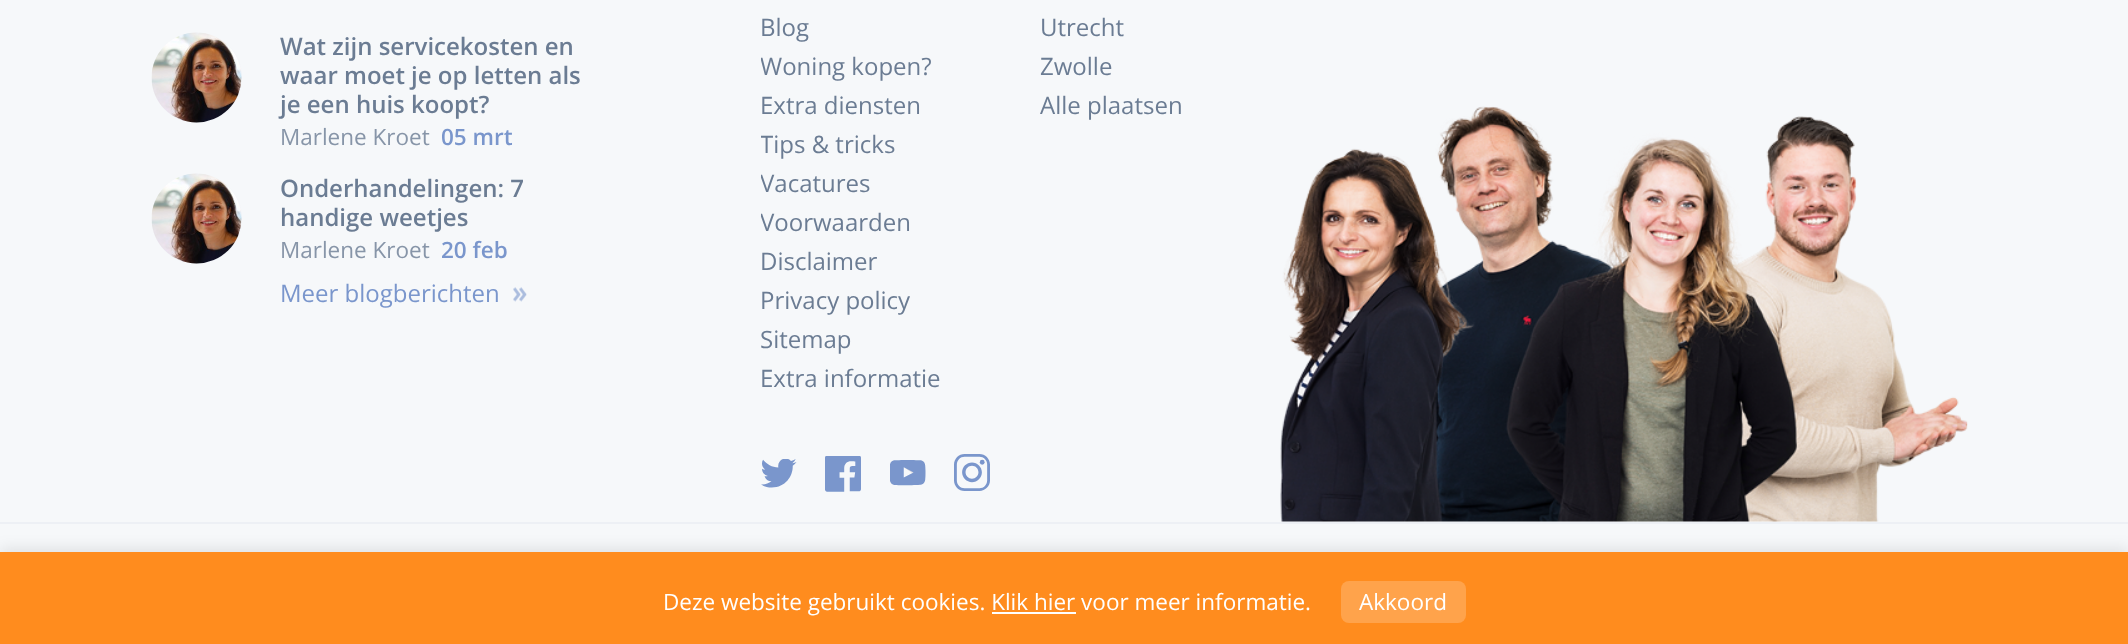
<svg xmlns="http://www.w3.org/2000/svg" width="2128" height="644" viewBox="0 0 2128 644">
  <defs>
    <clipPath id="clip1"><rect x="761" y="0" width="532" height="522"/></clipPath>
  </defs>
  <rect width="100%" height="100%" fill="rgb(246,248,250)"/>
  <circle cx="197" cy="78" r="45" fill="rgb(242,244,248)"/>
  <image x="151" y="32" width="91" height="91" href="pic1.png"/>
  <g font-family="Open Sans" font-size="24" font-weight="600" fill="rgb(107,124,147)">
    <text>
      <tspan x="280" y="55">Wat zijn servicekosten en</tspan>
      <tspan x="280" y="84">waar moet je op letten als</tspan>
      <tspan x="280" y="113">je een huis koopt?</tspan>
    </text>
  </g>
  <text x="280" y="145" font-family="Open Sans" font-size="22.5" fill="rgb(135,149,168)">Marlene Kroet</text>
  <text x="441" y="145" font-family="Open Sans" font-size="22.5" font-weight="600" fill="rgb(122,150,204)">05 mrt</text>
  <circle cx="197" cy="219" r="45" fill="rgb(242,244,248)"/>
  <image x="151" y="173" width="91" height="91" href="pic2.png"/>
  <g font-family="Open Sans" font-size="24" font-weight="600" fill="rgb(107,124,147)">
    <text>
      <tspan x="280" y="197">Onderhandelingen: 7</tspan>
      <tspan x="280" y="226">handige weetjes</tspan>
    </text>
  </g>
  <text x="280" y="258" font-family="Open Sans" font-size="22.5" fill="rgb(135,149,168)">Marlene Kroet</text>
  <text x="441" y="258" font-family="Open Sans" font-size="22.5" font-weight="600" fill="rgb(122,150,204)">20 feb</text>
  <text x="280" y="302" font-family="Open Sans" font-size="24" fill="rgb(122,150,204)">Meer blogberichten</text>
  <image x="513" y="287" width="8" height="15" href="pic3.png"/>
  <image x="519" y="287" width="8" height="15" href="pic4.png"/>
  <text x="760" y="36" font-family="Open Sans" font-size="24" fill="rgb(107,124,147)">Blog</text>
  <g clip-path="url(#clip1)">
    <text x="760" y="75" font-family="Open Sans" font-size="24" fill="rgb(107,124,147)">Woning kopen?</text>
  </g>
  <text x="760" y="114" font-family="Open Sans" font-size="24" fill="rgb(107,124,147)">Extra diensten</text>
  <g clip-path="url(#clip1)">
    <g font-family="Open Sans" font-size="24" fill="rgb(107,124,147)">
      <text>
        <tspan x="760" y="153">Tips &amp; tricks</tspan>
        <tspan x="760" y="192">Vacatures</tspan>
        <tspan x="760" y="231">Voorwaarden</tspan>
      </text>
    </g>
  </g>
  <g font-family="Open Sans" font-size="24" fill="rgb(107,124,147)">
    <text>
      <tspan x="760" y="270">Disclaimer</tspan>
      <tspan x="760" y="309">Privacy policy</tspan>
      <tspan x="760" y="348">Sitemap</tspan>
      <tspan x="760" y="387">Extra informatie</tspan>
    </text>
    <text>
      <tspan x="1040" y="36">Utrecht</tspan>
      <tspan x="1040" y="75">Zwolle</tspan>
      <tspan x="1040" y="114">Alle plaatsen</tspan>
    </text>
  </g>
  <image x="761" y="459" width="36" height="29" href="pic5.png"/>
  <image x="825" y="456" width="36" height="36" href="pic6.png"/>
  <image x="890" y="460" width="36" height="26" href="pic7.png"/>
  <image x="954" y="454" width="36" height="37" href="pic8.png"/>
  <image x="1280" y="106" width="688" height="416" href="pic9.png"/>
  <rect x="0" y="522" width="2128" height="2" fill="rgb(237,240,245)"/>
  <rect x="0" y="549" width="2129" height="93" fill="rgba(0,0,0,0.1)" filter="blur(7.5px)"/>
  <rect x="0" y="552" width="2128" height="92" fill="rgb(255,140,30)"/>
  <text x="663" y="610" font-family="Open Sans" font-size="22.5" fill="rgb(255,255,255)">Deze website gebruikt cookies. Klik hier voor meer informatie.</text>
  <rect x="992" y="612" width="84" height="2" fill="rgb(255,255,255)"/>
  <rect x="1341" y="581" width="125" height="42" rx="8" fill="rgb(255,163,75)"/>
  <text x="1359" y="610" font-family="Open Sans" font-size="22.5" fill="rgb(255,255,255)">Akkoord</text>
</svg>
